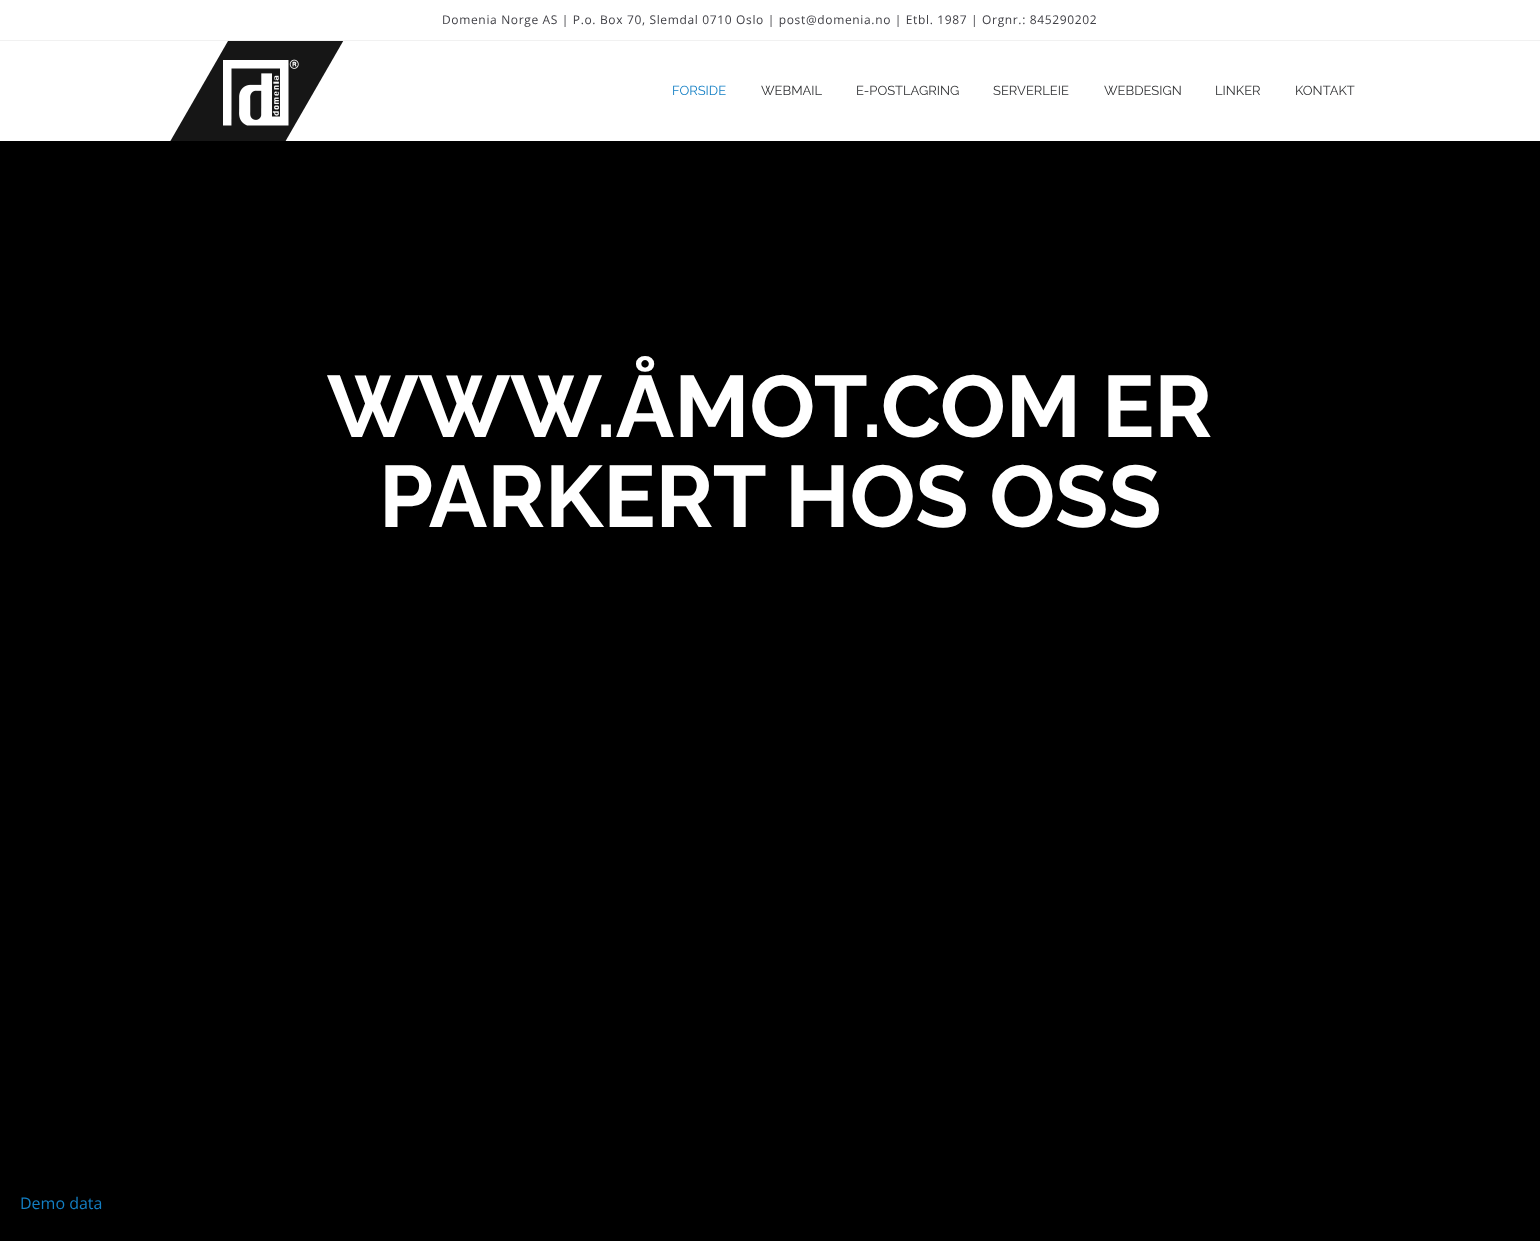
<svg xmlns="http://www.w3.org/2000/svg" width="1540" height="1241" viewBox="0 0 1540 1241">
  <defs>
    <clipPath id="clip1"><rect x="170" y="41" width="400" height="100"/></clipPath>
  </defs>
  <rect width="100%" height="100%" fill="rgb(255,255,255)"/>
  <rect x="0" y="40" width="1540" height="1" fill="rgb(241,241,241)"/>
  <text x="442" y="24" font-family="Open Sans" font-size="12" letter-spacing="0.65" fill="rgb(63,63,69)">Domenia Norge AS | P.o. Box 70, Slemdal 0710 Oslo | post@domenia.no | Etbl. 1987 | Orgnr.: 845290202</text>
  <g clip-path="url(#clip1)">
    <path d="M103 258L353-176V24L103 458Z" fill="rgb(22,22,22)"/>
  </g>
  <image x="223" y="59" width="76" height="67" href="pic1.png"/>
  <text x="672" y="95" font-family="Raleway" font-size="13" fill="rgb(19,127,196)">FORSIDE</text>
  <g font-family="Raleway" font-size="13" fill="rgb(49,50,52)">
    <text x="761" y="95">WEBMAIL</text>
    <text x="856" y="95">E-POSTLAGRING</text>
    <text x="993" y="95">SERVERLEIE</text>
    <text x="1104" y="95">WEBDESIGN</text>
    <text x="1215" y="95">LINKER</text>
    <text x="1295" y="95">KONTAKT</text>
  </g>
  <rect x="0" y="141" width="1540" height="1100" fill="rgb(0,0,0)"/>
  <g font-family="Raleway" font-size="87" font-weight="bold" fill="rgb(255,255,255)">
    <text x="327" y="437">WWW.ÅMOT.COM ER</text>
    <text x="379" y="527">PARKERT HOS OSS</text>
  </g>
  <text x="20" y="1209" font-family="Open Sans" font-size="16" fill="rgb(19,127,196)">Demo data</text>
</svg>
